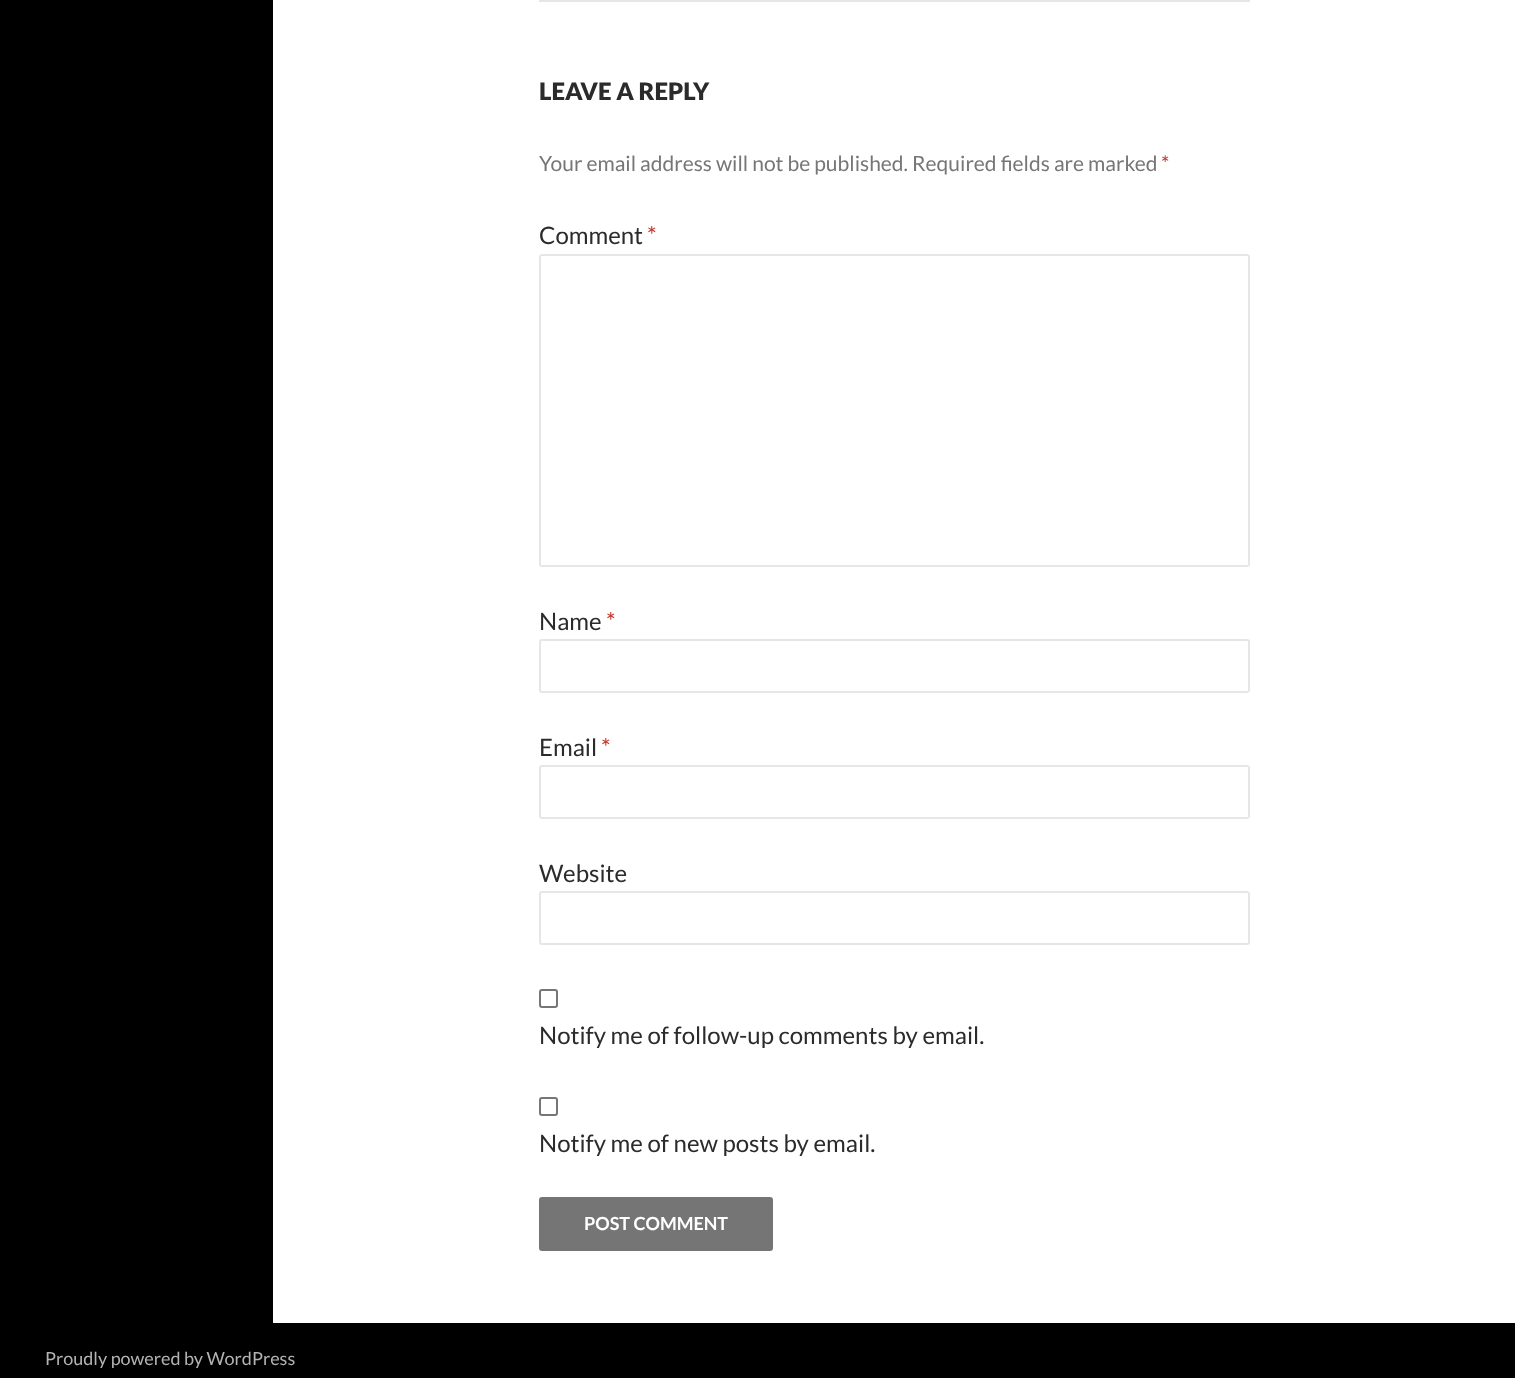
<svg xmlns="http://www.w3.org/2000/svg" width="1515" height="1378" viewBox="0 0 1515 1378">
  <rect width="100%" height="100%" fill="rgb(255,255,255)"/>
  <rect x="0" y="0" width="273" height="1323" fill="rgb(0,0,0)"/>
  <rect x="539" y="0" width="711" height="2" fill="rgb(230,230,230)"/>
  <text x="539" y="100" font-family="Lato" font-size="24" font-weight="900" fill="rgb(43,43,43)">LEAVE A REPLY</text>
  <text x="539" y="171" font-family="Lato" font-size="21" fill="rgb(118,118,118)">Your email address will not be published. Required fields are marked</text>
  <text x="1161" y="171" font-family="Lato" font-size="21" fill="rgb(192,57,43)">*</text>
  <text x="539" y="244" font-family="Lato" font-size="24" fill="rgb(43,43,43)">Comment</text>
  <text x="647" y="244" font-family="Lato" font-size="24" fill="rgb(192,57,43)">*</text>
  <rect x="540" y="255" width="709" height="311" rx="2" fill="none" stroke="rgb(230,230,230)" stroke-width="2"/>
  <text x="539" y="630" font-family="Lato" font-size="24" fill="rgb(43,43,43)">Name</text>
  <text x="606" y="630" font-family="Lato" font-size="24" fill="rgb(192,57,43)">*</text>
  <rect x="540" y="640" width="709" height="52" rx="2" fill="none" stroke="rgb(230,230,230)" stroke-width="2"/>
  <text x="539" y="756" font-family="Lato" font-size="24" fill="rgb(43,43,43)">Email</text>
  <text x="601" y="756" font-family="Lato" font-size="24" fill="rgb(192,57,43)">*</text>
  <rect x="540" y="766" width="709" height="52" rx="2" fill="none" stroke="rgb(230,230,230)" stroke-width="2"/>
  <text x="539" y="882" font-family="Lato" font-size="24" fill="rgb(43,43,43)">Website</text>
  <rect x="540" y="892" width="709" height="52" rx="2" fill="none" stroke="rgb(230,230,230)" stroke-width="2"/>
  <rect x="540" y="990" width="17" height="17" rx="2" fill="none" stroke="rgb(118,118,118)" stroke-width="2"/>
  <text x="539" y="1044" font-family="Lato" font-size="24" fill="rgb(43,43,43)">Notify me of follow-up comments by email.</text>
  <rect x="540" y="1098" width="17" height="17" rx="2" fill="none" stroke="rgb(118,118,118)" stroke-width="2"/>
  <text x="539" y="1152" font-family="Lato" font-size="24" fill="rgb(43,43,43)">Notify me of new posts by email.</text>
  <rect x="539" y="1197" width="234" height="54" rx="3" fill="rgb(117,117,117)"/>
  <text x="584" y="1230" font-family="Lato" font-size="18" font-weight="bold" fill="rgb(255,255,255)">POST COMMENT</text>
  <rect x="0" y="1323" width="1515" height="55" fill="rgb(0,0,0)"/>
  <text x="45" y="1365" font-family="Lato" font-size="18" fill="rgb(179,179,179)">Proudly powered by WordPress</text>
</svg>
